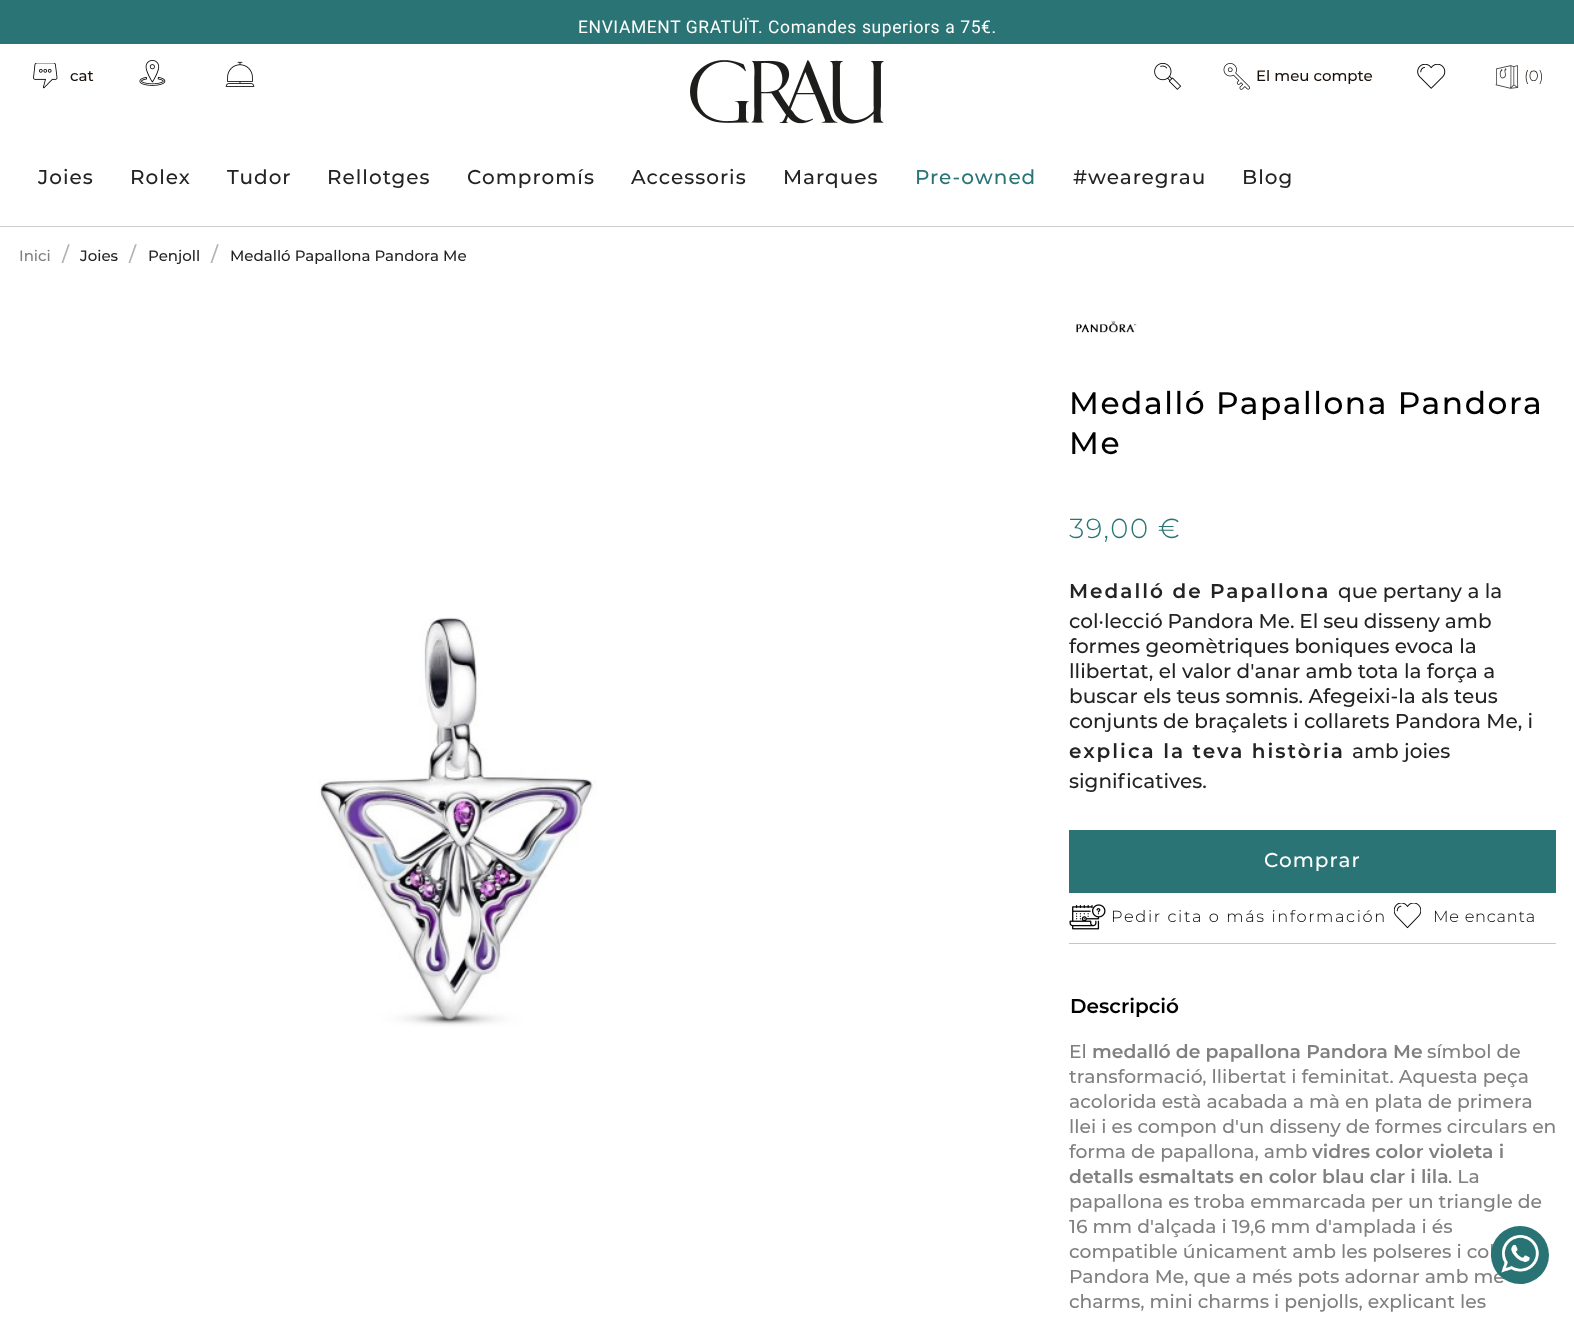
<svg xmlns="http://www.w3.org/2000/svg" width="1574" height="1326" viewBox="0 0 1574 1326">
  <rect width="100%" height="100%" fill="rgb(255,255,255)"/>
  <rect x="0" y="0" width="1574" height="44" fill="rgb(42,116,117)"/>
  <text x="578" y="33" font-family="Roboto" font-size="17.5" letter-spacing="0.6" fill="rgb(255,255,255)">ENVIAMENT GRATUÏT. Comandes superiors a 75€.</text>
  <rect x="0" y="226" width="1574" height="1" fill="rgb(206,206,206)"/>
  <image x="33" y="63" width="25" height="26" href="pic1.png"/>
  <text x="70" y="81" font-family="Montserrat" font-size="15" font-weight="500" fill="rgb(25,16,9)">cat</text>
  <image x="139" y="60" width="27" height="26" href="pic2.png"/>
  <image x="225" y="61" width="30" height="26" href="pic3.png"/>
  <image x="690" y="60" width="194" height="64" href="pic4.png"/>
  <image x="1154" y="63" width="27" height="27" href="pic5.png"/>
  <image x="1223" y="63" width="27" height="27" href="pic6.png"/>
  <text x="1256" y="81" font-family="Montserrat" font-size="15" font-weight="500" fill="rgb(25,16,9)">El meu compte</text>
  <image x="1417" y="64" width="29" height="25" href="pic7.png"/>
  <image x="1495" y="65" width="24" height="24" href="pic8.png"/>
  <text x="1524" y="81" font-family="Montserrat" font-size="15" font-weight="300" fill="rgb(25,16,9)">(0)</text>
  <g font-family="Montserrat" font-size="20" font-weight="500" letter-spacing="1" fill="rgb(35,35,35)">
    <text x="38" y="184">Joies</text>
    <text x="130" y="184">Rolex</text>
    <text x="227" y="184">Tudor</text>
    <text x="327" y="184">Rellotges</text>
    <text x="467" y="184">Compromís</text>
    <text x="631" y="184">Accessoris</text>
    <text x="783" y="184">Marques</text>
  </g>
  <text x="915" y="184" font-family="Montserrat" font-size="20" font-weight="500" letter-spacing="1" fill="rgb(42,116,117)">Pre-owned</text>
  <g font-family="Montserrat" font-size="20" font-weight="500" letter-spacing="1" fill="rgb(35,35,35)">
    <text x="1073" y="184">#wearegrau</text>
    <text x="1242" y="184">Blog</text>
  </g>
  <g font-family="Montserrat" font-size="18.75" font-weight="500" fill="rgb(128,128,128)">
    <text>
      <tspan x="1069" y="1258">compatible únicament amb les polseres i col</tspan>
      <tspan x="1069" y="1283">Pandora Me, que a més pots adornar amb mé</tspan>
    </text>
  </g>
  <circle cx="1520" cy="1255" r="29" fill="rgb(42,115,117)"/>
  <image x="1501" y="1235" width="38" height="38" href="pic9.png"/>
  <text x="19" y="261" font-family="Montserrat" font-size="15" font-weight="500" fill="rgb(128,128,128)">Inici</text>
  <text x="62" y="261" font-family="Montserrat" font-size="20" font-weight="500" fill="rgb(180,180,180)">/</text>
  <text x="80" y="261" font-family="Montserrat" font-size="15" font-weight="500" fill="rgb(35,35,35)">Joies</text>
  <text x="129" y="261" font-family="Montserrat" font-size="20" font-weight="500" fill="rgb(180,180,180)">/</text>
  <text x="148" y="261" font-family="Montserrat" font-size="15" font-weight="500" fill="rgb(35,35,35)">Penjoll</text>
  <text x="211" y="261" font-family="Montserrat" font-size="20" font-weight="500" fill="rgb(180,180,180)">/</text>
  <text x="230" y="261" font-family="Montserrat" font-size="15" font-weight="500" fill="rgb(35,35,35)">Medalló Papallona Pandora Me</text>
  <image x="319" y="617" width="278" height="410" href="pic10.png"/>
  <image x="1076" y="320" width="61" height="13" href="pic11.png"/>
  <g font-family="Montserrat" font-size="31.25" font-weight="500" letter-spacing="1.55" fill="rgb(0,0,0)">
    <text>
      <tspan x="1069" y="414">Medalló Papallona Pandora</tspan>
      <tspan x="1069" y="454">Me</tspan>
    </text>
  </g>
  <text x="1069" y="538" font-family="Montserrat" font-size="27.5" font-weight="300" letter-spacing="1.5" fill="rgb(42,116,117)">39,00 €</text>
  <text x="1069" y="598" font-family="Montserrat" font-size="20" font-weight="600" letter-spacing="2" fill="rgb(35,35,35)">Medalló de Papallona</text>
  <g font-family="Montserrat" font-size="20" font-weight="500" fill="rgb(35,35,35)">
    <text x="1338" y="598">que pertany a la</text>
    <text>
      <tspan x="1069" y="628" word-spacing="-0.5">col·lecció Pandora Me. El seu disseny amb</tspan>
      <tspan x="1069" y="653">formes geomètriques boniques evoca la</tspan>
      <tspan x="1069" y="678">llibertat, el valor d'anar amb tota la força a</tspan>
      <tspan x="1069" y="703">buscar els teus somnis. Afegeixi-la als teus</tspan>
      <tspan x="1069" y="728">conjunts de braçalets i collarets Pandora Me, i</tspan>
    </text>
  </g>
  <text x="1069" y="758" font-family="Montserrat" font-size="20" font-weight="600" letter-spacing="2" fill="rgb(35,35,35)">explica la teva història</text>
  <g font-family="Montserrat" font-size="20" font-weight="500" fill="rgb(35,35,35)">
    <text x="1352" y="758">amb joies</text>
    <text x="1069" y="788">significatives.</text>
  </g>
  <rect x="1069" y="830" width="487" height="63" fill="rgb(42,116,117)"/>
  <text x="1264" y="867" font-family="Montserrat" font-size="20" font-weight="500" letter-spacing="1" fill="rgb(255,255,255)">Comprar</text>
  <rect x="1069" y="943" width="487" height="1" fill="rgb(199,197,197)"/>
  <image x="1069" y="904" width="37" height="26" href="pic12.png"/>
  <text x="1111" y="922" font-family="Montserrat" font-size="16.25" font-weight="300" letter-spacing="1.6" fill="rgb(0,0,0)">Pedir cita o más información</text>
  <image x="1394" y="903" width="27" height="26" href="pic13.png"/>
  <text x="1433" y="922" font-family="Montserrat" font-size="16.25" font-weight="300" letter-spacing="0.75" fill="rgb(0,0,0)">Me encanta</text>
  <text x="1070" y="1013" font-family="Montserrat" font-size="20" font-weight="600" fill="rgb(0,0,0)">Descripció</text>
  <text x="1069" y="1058" font-family="Montserrat" font-size="18.75" font-weight="500" fill="rgb(128,128,128)">El</text>
  <text x="1092" y="1058" font-family="Montserrat" font-size="18.75" font-weight="600" fill="rgb(128,128,128)">medalló de papallona Pandora Me</text>
  <g font-family="Montserrat" font-size="18.75" font-weight="500" fill="rgb(128,128,128)">
    <text x="1427" y="1058">símbol de</text>
    <text>
      <tspan x="1069" y="1083">transformació, llibertat i feminitat. Aquesta peça</tspan>
      <tspan x="1069" y="1108">acolorida està acabada a mà en plata de primera</tspan>
      <tspan x="1069" y="1133">llei i es compon d'un disseny de formes circulars en</tspan>
      <tspan x="1069" y="1158">forma de papallona, amb</tspan>
    </text>
  </g>
  <g font-family="Montserrat" font-size="18.75" font-weight="600" fill="rgb(128,128,128)">
    <text x="1312" y="1158">vidres color violeta i</text>
    <text x="1069" y="1183">detalls esmaltats en color blau clar i lila</text>
  </g>
  <g font-family="Montserrat" font-size="18.75" font-weight="500" fill="rgb(128,128,128)">
    <text x="1448" y="1183">. La</text>
    <text>
      <tspan x="1069" y="1208">papallona es troba emmarcada per un triangle de</tspan>
      <tspan x="1069" y="1233">16 mm d'alçada i 19,6 mm d'amplada i és</tspan>
    </text>
    <text x="1069" y="1308">charms, mini charms i penjolls, explicant les</text>
  </g>
</svg>
